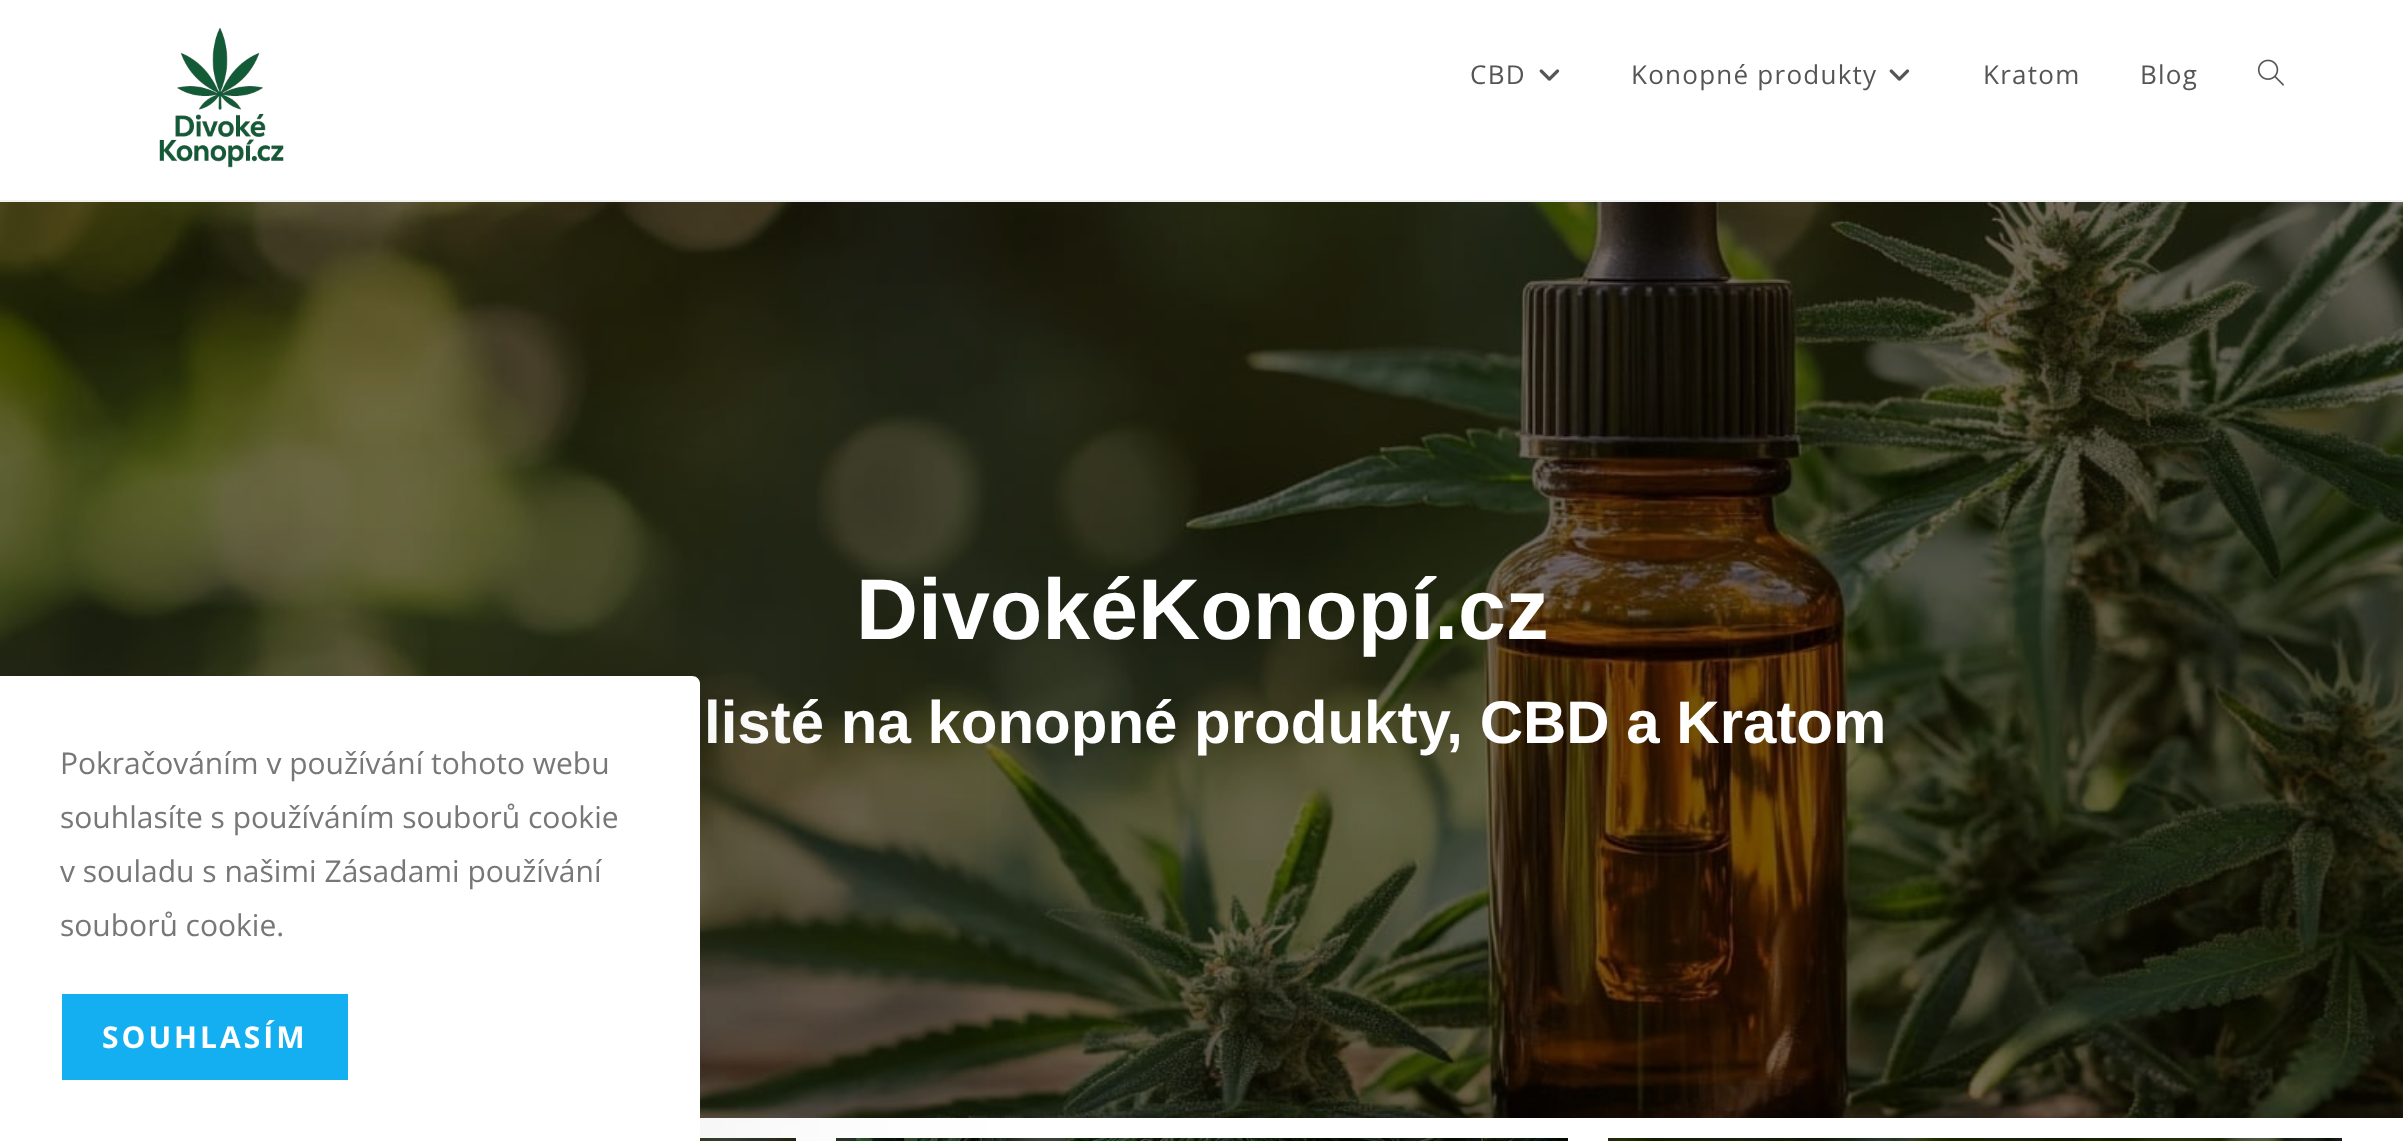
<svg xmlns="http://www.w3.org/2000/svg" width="2403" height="1141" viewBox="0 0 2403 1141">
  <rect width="100%" height="100%" fill="rgb(255,255,255)"/>
  <rect x="0" y="200" width="2403" height="2" fill="rgb(241,241,241)"/>
  <image x="159" y="27" width="125" height="141" href="pic1.png"/>
  <text x="1470" y="84" font-family="Open Sans" font-size="26" letter-spacing="1.25" fill="rgb(85,85,85)">CBD</text>
  <image x="1539" y="69" width="21" height="12" href="pic2.png"/>
  <text x="1631" y="84" font-family="Open Sans" font-size="26" letter-spacing="1.25" fill="rgb(85,85,85)">Konopné produkty</text>
  <image x="1889" y="69" width="21" height="12" href="pic2.png"/>
  <g font-family="Open Sans" font-size="26" letter-spacing="1.25" fill="rgb(85,85,85)">
    <text x="1983" y="84">Kratom</text>
    <text x="2140" y="84">Blog</text>
  </g>
  <image x="2257" y="59" width="27" height="27" href="pic3.png"/>
  <image x="0" y="202" width="2403" height="916" href="pic4.png"/>
  <text x="856" y="639" font-family="Liberation Sans" font-size="86" font-weight="bold" fill="rgb(255,255,255)">DivokéKonopí.cz</text>
  <text x="704" y="743" font-family="Liberation Sans" font-size="60" font-weight="bold" fill="rgb(255,255,255)">listé na konopné produkty, CBD a Kratom</text>
  <rect x="700" y="1138" width="96" height="3" fill="rgb(0,0,0)"/>
  <image x="700" y="1138" width="96" height="3" href="pic5.png"/>
  <rect x="836" y="1138" width="732" height="3" fill="rgb(0,0,0)"/>
  <image x="836" y="1138" width="732" height="3" href="pic6.png"/>
  <rect x="1608" y="1138" width="734" height="3" fill="rgb(0,0,0)"/>
  <image x="1608" y="1138" width="734" height="3" href="pic7.png"/>
  <rect x="0" y="716" width="700" height="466" rx="8" fill="rgba(0,0,0,0.1)" filter="blur(150px)"/>
  <path d="M0 676H692C696.5 676 700 679.5 700 684V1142H0Z" fill="rgb(255,255,255)"/>
  <g font-family="Open Sans" font-size="30" fill="rgb(119,119,119)">
    <text>
      <tspan x="60" y="774">Pokračováním v používání tohoto webu</tspan>
      <tspan x="60" y="828">souhlasíte s používáním souborů cookie</tspan>
      <tspan x="60" y="882">v souladu s našimi Zásadami používání</tspan>
      <tspan x="60" y="936">souborů cookie.</tspan>
    </text>
  </g>
  <rect x="62" y="994" width="286" height="86" fill="rgb(19,175,240)"/>
  <text x="102" y="1048" font-family="Open Sans" font-size="30" font-weight="bold" letter-spacing="3" fill="rgb(255,255,255)">SOUHLASÍM</text>
</svg>
